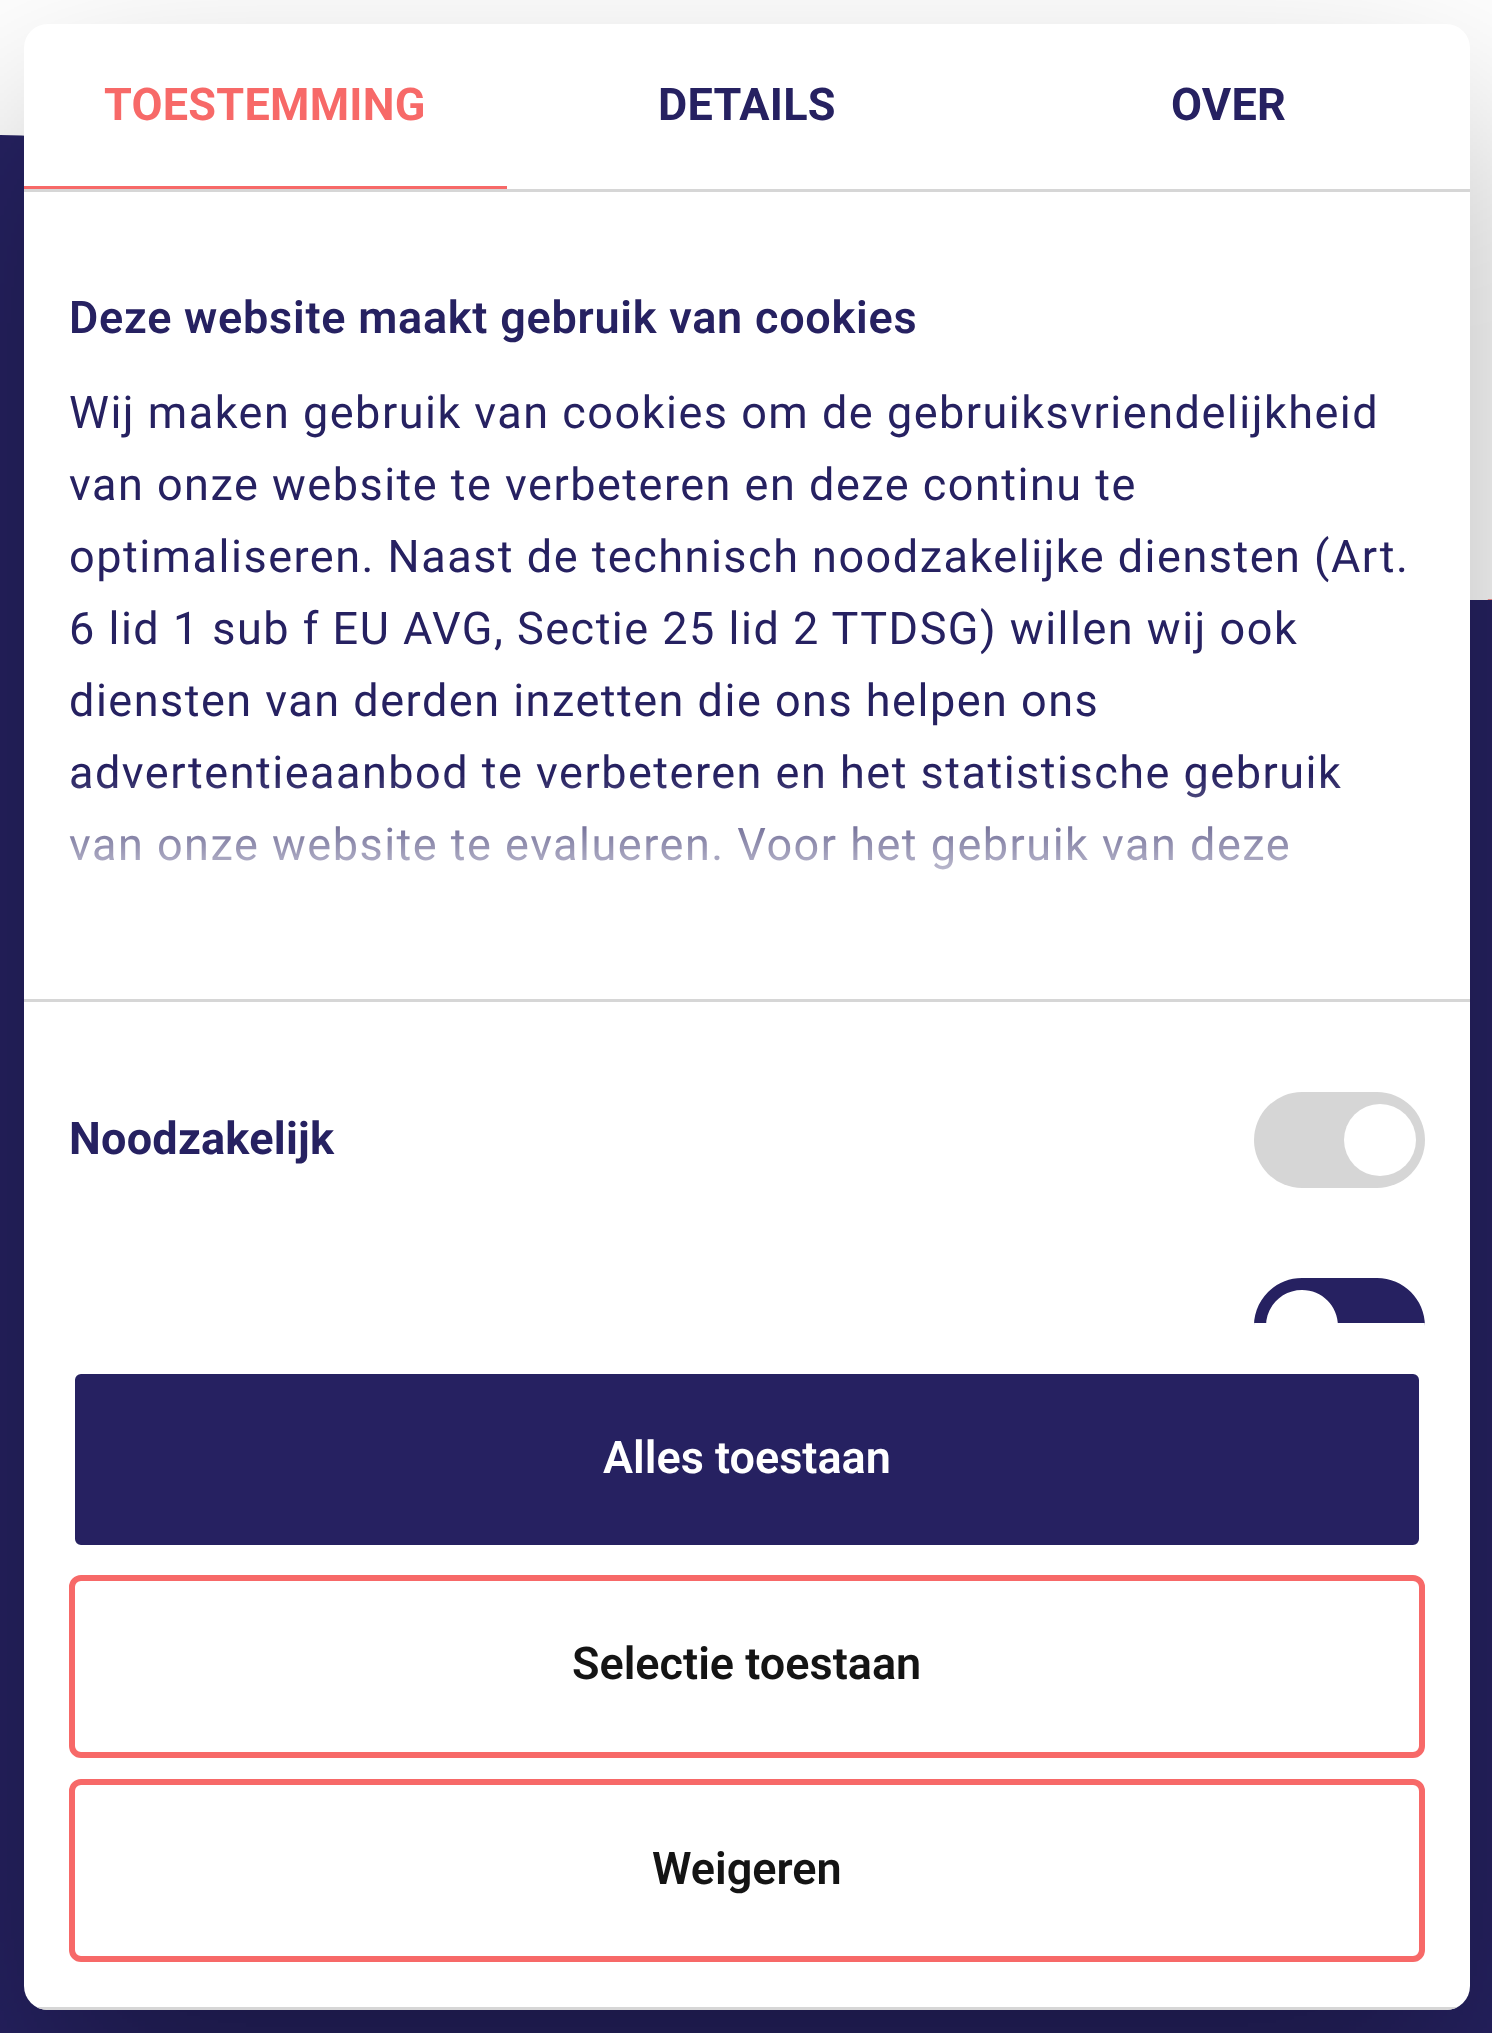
<svg xmlns="http://www.w3.org/2000/svg" width="1492" height="2033" viewBox="0 0 1492 2033">
  <defs>
    <linearGradient id="g1" gradientUnits="userSpaceOnUse" x1="728" y1="999" x2="728" y2="774"><stop offset="0" stop-color="rgb(255,255,255)"/><stop offset="0.5" stop-color="rgb(255,255,255)" stop-opacity="0.8"/><stop offset="1" stop-color="rgb(255,255,255)" stop-opacity="0"/></linearGradient>
    <clipPath id="clip1"><rect x="24" y="24" width="1446" height="1986" rx="24"/></clipPath>
  </defs>
  <rect width="100%" height="100%" fill="rgb(255,255,255)"/>
  <path d="M705 605C331 605 367 135 0 135V605Z" fill="rgb(38,34,98)"/>
  <rect x="0" y="600" width="1492" height="777" fill="rgb(38,34,98)"/>
  <image x="1487" y="599" width="5" height="1" href="pic1.png"/>
  <rect x="0" y="1377" width="1492" height="656" fill="rgb(38,34,98)"/>
  <rect x="24" y="120" width="1446" height="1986" rx="24" fill="rgba(0,0,0,0.3)" filter="blur(102px)"/>
  <rect x="24" y="24" width="1446" height="1986" rx="24" fill="rgb(255,255,255)"/>
  <rect x="24" y="189" width="1446" height="3" fill="rgb(214,214,214)"/>
  <rect x="24" y="186" width="483" height="3" fill="rgb(247,105,104)"/>
  <text x="104" y="120" font-family="Roboto" font-size="45" font-weight="bold" letter-spacing="0.25" fill="rgb(247,105,104)">TOESTEMMING</text>
  <g font-family="Roboto" font-size="45" font-weight="bold" letter-spacing="0.25" fill="rgb(38,33,97)">
    <text x="658" y="120">DETAILS</text>
    <text x="1171" y="120">OVER</text>
  </g>
  <rect x="24" y="999" width="1446" height="3" fill="rgb(214,214,214)"/>
  <text x="69" y="333" font-family="Roboto" font-size="45" font-weight="600" letter-spacing="0.75" fill="rgb(38,33,97)">Deze website maakt gebruik van cookies</text>
  <g font-family="Roboto" font-size="45" letter-spacing="1.5" fill="rgb(38,33,97)">
    <text>
      <tspan x="69" y="428">Wij maken gebruik van cookies om de gebruiksvriendelijkheid</tspan>
      <tspan x="69" y="500">van onze website te verbeteren en deze continu te</tspan>
      <tspan x="69" y="572">optimaliseren. Naast de technisch noodzakelijke diensten (Art.</tspan>
      <tspan x="69" y="644">6 lid 1 sub f EU AVG, Sectie 25 lid 2 TTDSG) willen wij ook</tspan>
      <tspan x="69" y="716">diensten van derden inzetten die ons helpen ons</tspan>
      <tspan x="69" y="788">advertentieaanbod te verbeteren en het statistische gebruik</tspan>
      <tspan x="69" y="860">van onze website te evalueren. Voor het gebruik van deze</tspan>
    </text>
  </g>
  <rect x="69" y="777" width="1272" height="93" fill="url(#g1)"/>
  <text x="69" y="1154" font-family="Roboto" font-size="45" font-weight="bold" letter-spacing="0.25" fill="rgb(38,33,97)">Noodzakelijk</text>
  <rect x="1254" y="1092" width="171" height="96" rx="48" fill="rgb(214,214,214)"/>
  <circle cx="1380" cy="1140" r="36" fill="rgb(255,255,255)"/>
  <path d="M1302 1278H1377C1403.5 1278 1425 1299.5 1425 1326V1323H1254V1326C1254 1299.5 1275.5 1278 1302 1278Z" fill="rgb(38,33,97)"/>
  <path d="M1302 1290C1322 1290 1338 1306 1338 1326V1323H1266V1326C1266 1306 1282 1290 1302 1290Z" fill="rgb(255,255,255)"/>
  <g clip-path="url(#clip1)">
    <rect x="36" y="2007" width="1422" height="3" fill="rgb(214,214,214)"/>
  </g>
  <rect x="72" y="1371" width="1350" height="177" rx="9" fill="rgb(38,33,97)" stroke="rgb(255,255,255)" stroke-width="6"/>
  <text x="603" y="1473" font-family="Roboto" font-size="45" font-weight="600" fill="rgb(255,255,255)">Alles toestaan</text>
  <rect x="72" y="1578" width="1350" height="177" rx="9" fill="none" stroke="rgb(247,105,104)" stroke-width="6"/>
  <text x="572" y="1679" font-family="Roboto" font-size="45" font-weight="600" fill="rgb(20,20,20)">Selectie toestaan</text>
  <rect x="72" y="1782" width="1350" height="177" rx="9" fill="none" stroke="rgb(247,105,104)" stroke-width="6"/>
  <text x="652" y="1884" font-family="Roboto" font-size="45" font-weight="600" fill="rgb(20,20,20)">Weigeren</text>
</svg>
